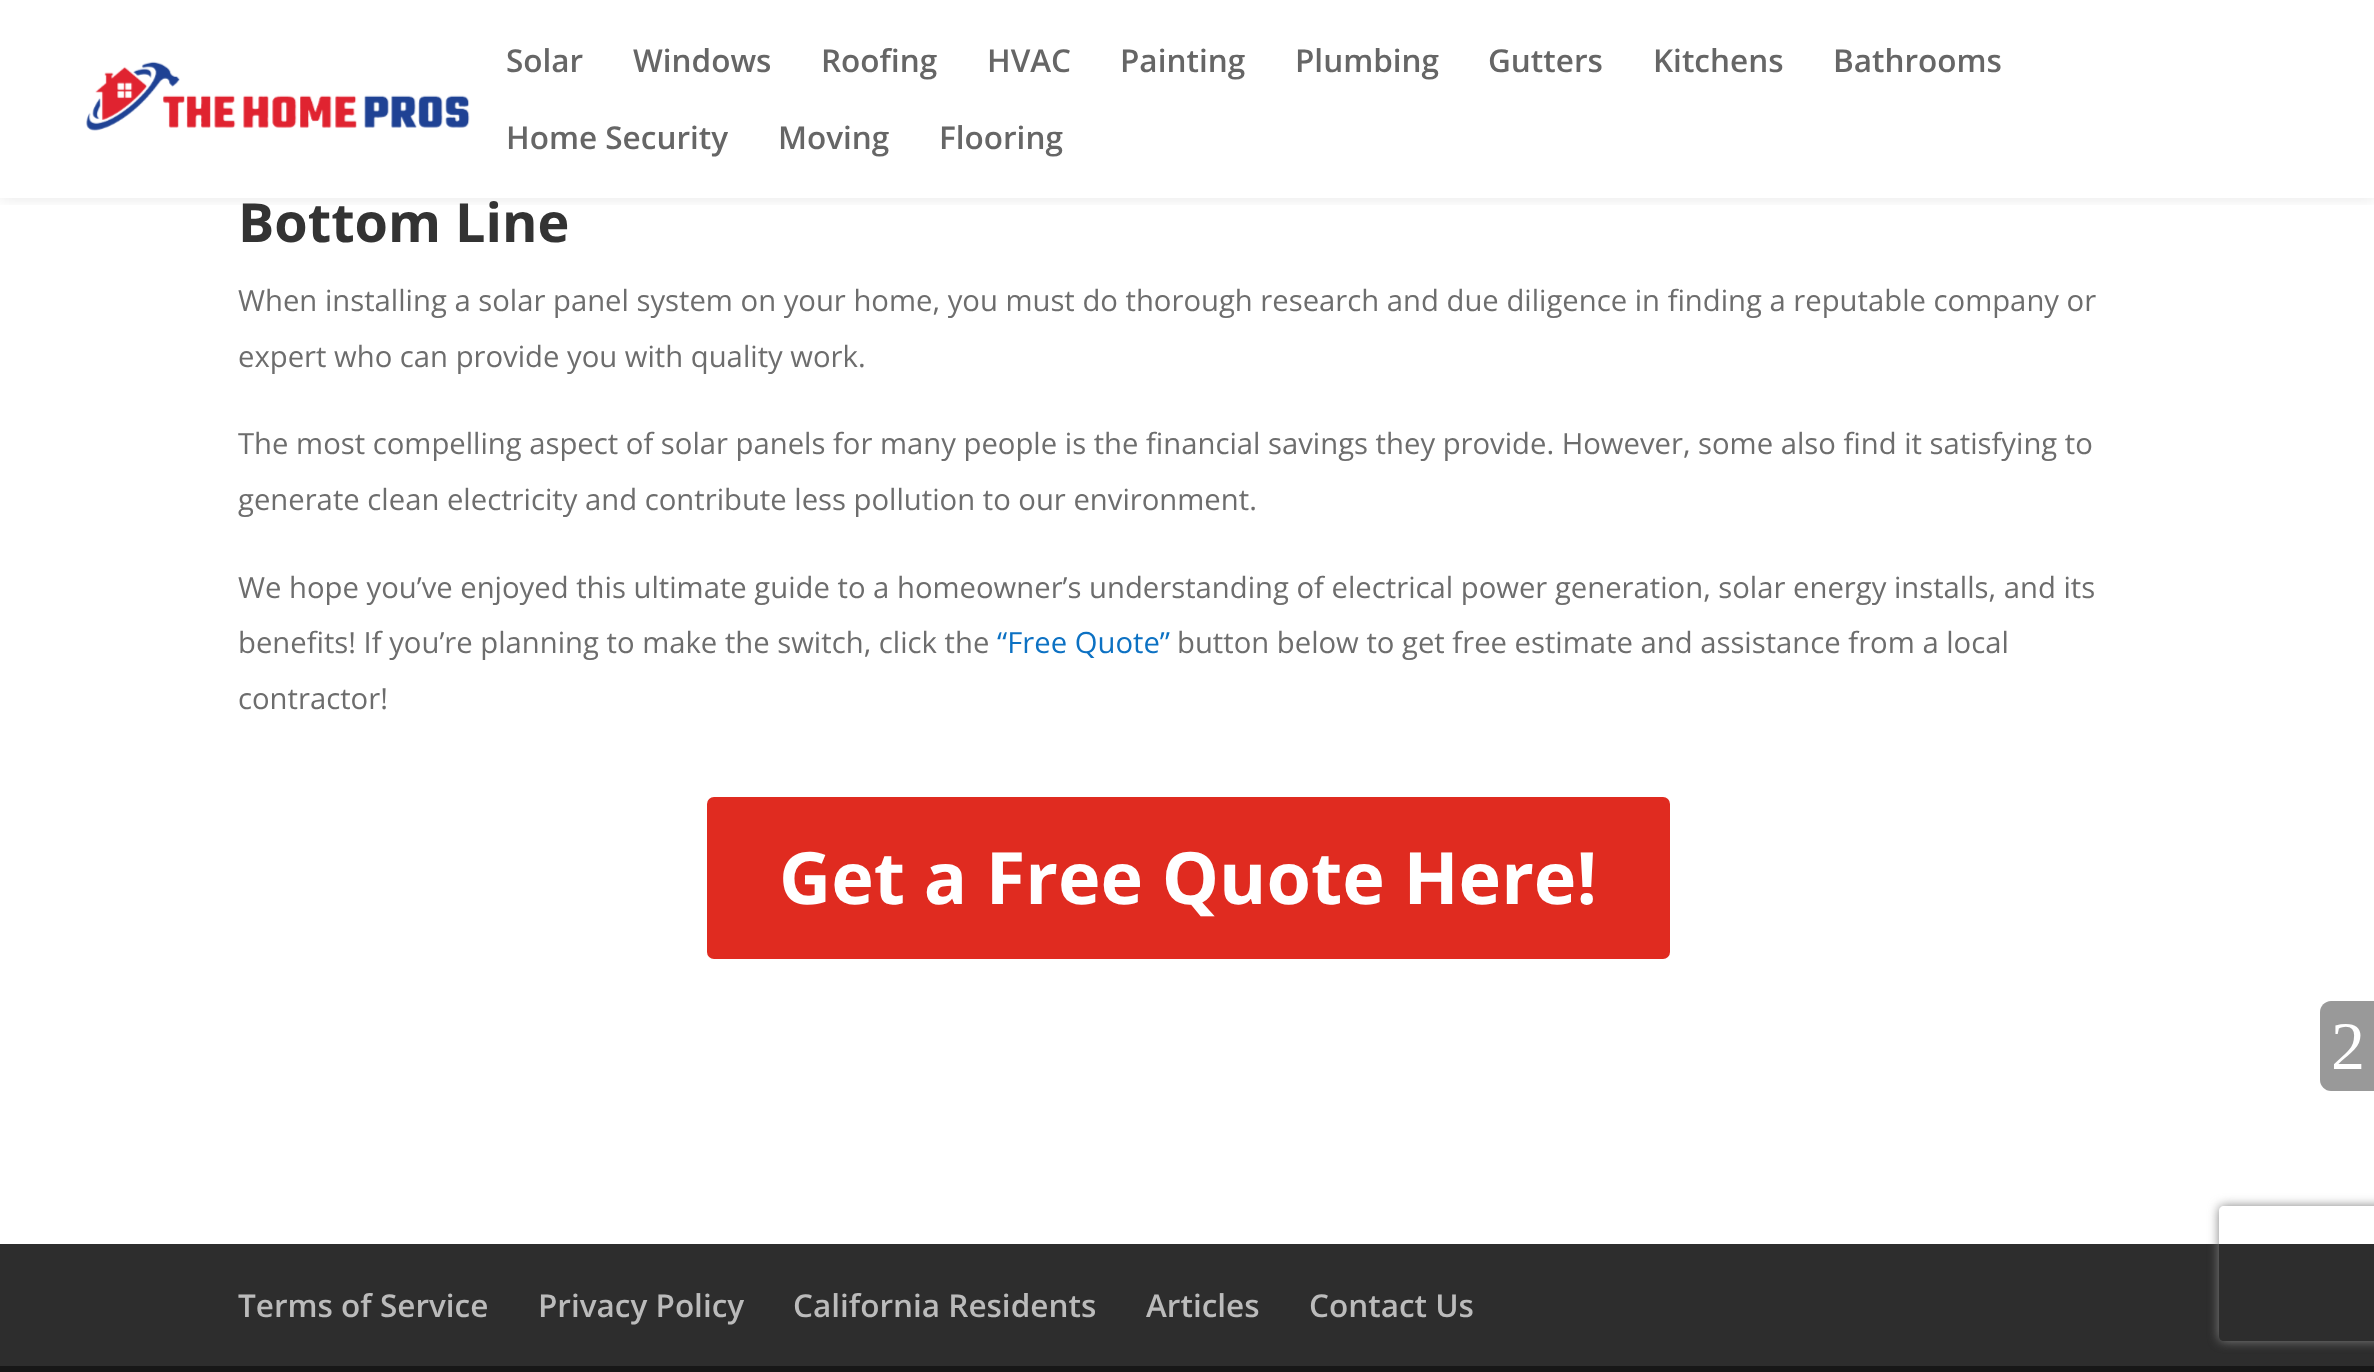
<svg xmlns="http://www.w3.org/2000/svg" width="2374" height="1372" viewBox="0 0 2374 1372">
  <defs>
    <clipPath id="clip1"><rect x="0" y="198" width="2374" height="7"/></clipPath>
    <clipPath id="clip2"><path d="M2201 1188H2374V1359H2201ZM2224 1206H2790C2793 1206 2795 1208 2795 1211V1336C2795 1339 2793 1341 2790 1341H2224C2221 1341 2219 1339 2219 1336V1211C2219 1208 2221 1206 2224 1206Z" clip-rule="evenodd"/></clipPath>
  </defs>
  <rect width="100%" height="100%" fill="rgb(255,255,255)"/>
  <g clip-path="url(#clip1)">
    <rect x="0" y="0" width="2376" height="198" fill="rgba(0,0,0,0.1)" filter="blur(8px)"/>
  </g>
  <image x="86" y="61" width="384" height="70" href="pic1.png"/>
  <g font-family="Open Sans" font-size="31.5" font-weight="600" fill="rgb(102,102,102)">
    <text x="506" y="72">Solar</text>
    <text x="633" y="72">Windows</text>
    <text x="821" y="72">Roofing</text>
    <text x="987" y="72">HVAC</text>
    <text x="1120" y="72">Painting</text>
    <text x="1295" y="72">Plumbing</text>
    <text x="1488" y="72">Gutters</text>
    <text x="1653" y="72">Kitchens</text>
    <text x="1833" y="72">Bathrooms</text>
    <text x="506" y="149">Home Security</text>
    <text x="778" y="149">Moving</text>
    <text x="939" y="149">Flooring</text>
  </g>
  <text x="238" y="242" font-family="Open Sans" font-size="54" font-weight="bold" fill="rgb(51,51,51)">Bottom Line</text>
  <g font-family="Open Sans" font-size="29.25" fill="rgb(109,109,109)">
    <text>
      <tspan x="238" y="311">When installing a solar panel system on your home, you must do thorough research and due diligence in finding a reputable company or</tspan>
      <tspan x="238" y="367">expert who can provide you with quality work.</tspan>
    </text>
    <text>
      <tspan x="238" y="454">The most compelling aspect of solar panels for many people is the financial savings they provide. However, some also find it satisfying to</tspan>
      <tspan x="238" y="510">generate clean electricity and contribute less pollution to our environment.</tspan>
    </text>
    <text>
      <tspan x="238" y="598">We hope you’ve enjoyed this ultimate guide to a homeowner’s understanding of electrical power generation, solar energy installs, and its</tspan>
      <tspan x="238" y="653">benefits! If you’re planning to make the switch, click the</tspan>
    </text>
  </g>
  <text x="997" y="653" font-family="Open Sans" font-size="29.25" fill="rgb(12,113,195)">“Free Quote”</text>
  <g font-family="Open Sans" font-size="29.25" fill="rgb(109,109,109)">
    <text x="1177" y="653">button below to get free estimate and assistance from a local</text>
    <text x="238" y="709">contractor!</text>
  </g>
  <rect x="707" y="797" width="963" height="162" rx="7" fill="rgb(224,43,32)"/>
  <text x="779" y="904" font-family="Open Sans" font-size="72" font-weight="bold" fill="rgb(255,255,255)">Get a Free Quote Here!</text>
  <path d="M2331 1001H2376V1091H2331C2325 1091 2320 1086 2320 1080V1012C2320 1006 2325 1001 2331 1001Z" fill="rgb(153,153,153)"/>
  <text x="2331" y="1069" font-family="Liberation Serif" font-size="68" fill="rgb(255,255,255)">2</text>
  <rect x="0" y="1244" width="2374" height="122" fill="rgb(45,45,45)"/>
  <g font-family="Open Sans" font-size="31.5" font-weight="600" fill="rgb(187,187,187)">
    <text x="238" y="1317">Terms of Service</text>
    <text x="538" y="1317">Privacy Policy</text>
    <text x="793" y="1317">California Residents</text>
    <text x="1146" y="1317">Articles</text>
    <text x="1309" y="1317">Contact Us</text>
  </g>
  <rect x="0" y="1366" width="2374" height="6" fill="rgb(23,23,23)"/>
  <g clip-path="url(#clip2)">
    <rect x="2219" y="1206" width="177" height="135" rx="5" fill="rgb(128,128,128)" filter="blur(5.5px)"/>
  </g>
</svg>
